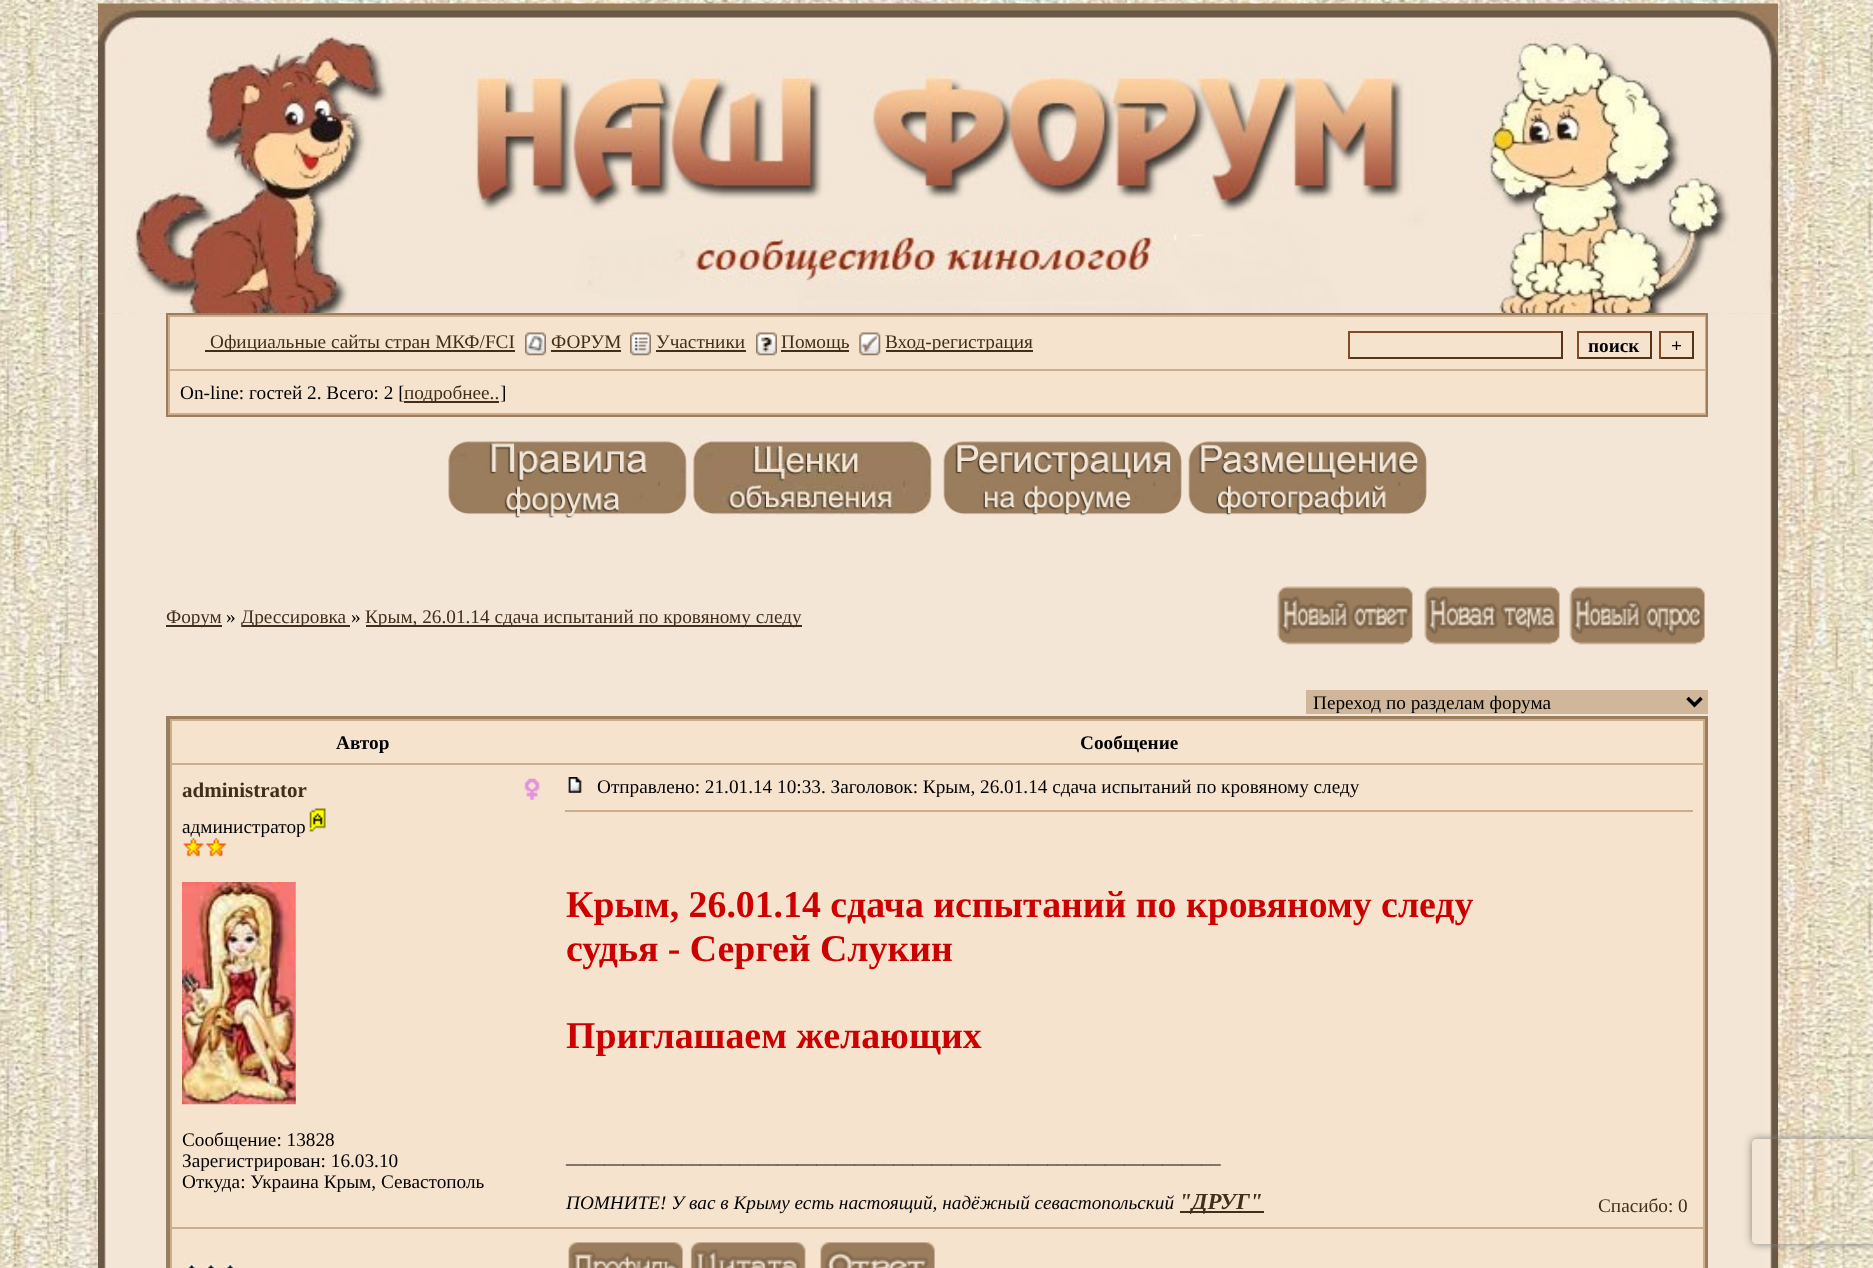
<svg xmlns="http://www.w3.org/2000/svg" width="1873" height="1268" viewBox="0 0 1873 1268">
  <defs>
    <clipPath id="clip1"><path d="M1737 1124H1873V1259H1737ZM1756 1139H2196C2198 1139 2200 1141 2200 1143V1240C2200 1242 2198 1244 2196 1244H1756C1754 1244 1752 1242 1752 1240V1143C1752 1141 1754 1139 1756 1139Z" clip-rule="evenodd"/></clipPath>
  </defs>
  <rect width="100%" height="100%" fill="rgb(255,255,255)"/>
  <image x="0" y="0" width="1873" height="1268" href="pic1.png"/>
  <image x="98" y="3" width="1680" height="311" href="pic2.png"/>
  <image x="98" y="313" width="1680" height="955" href="pic3.png"/>
  <rect x="166" y="313" width="1542" height="104" fill="rgb(154,125,93)"/>
  <rect x="168" y="315" width="1538" height="100" fill="rgb(206,173,140)"/>
  <rect x="170" y="317" width="1535" height="52" fill="rgb(245,227,206)"/>
  <rect x="205" y="350" width="310" height="2" fill="rgb(65,47,27)"/>
  <text x="210" y="348" font-family="Liberation Serif" font-size="19.25" fill="rgb(65,47,27)">Официальные сайты стран МКФ/FCI</text>
  <image x="525" y="332" width="21" height="24" href="pic4.png"/>
  <text x="551" y="348" font-family="Liberation Serif" font-size="19.25" fill="rgb(65,47,27)">ФОРУМ</text>
  <rect x="551" y="350" width="70" height="2" fill="rgb(65,47,27)"/>
  <image x="630" y="332" width="21" height="24" href="pic5.png"/>
  <text x="656" y="348" font-family="Liberation Serif" font-size="19.25" fill="rgb(65,47,27)">Участники</text>
  <rect x="656" y="350" width="90" height="2" fill="rgb(65,47,27)"/>
  <image x="756" y="332" width="21" height="24" href="pic6.png"/>
  <rect x="781" y="350" width="68" height="2" fill="rgb(65,47,27)"/>
  <text x="781" y="348" font-family="Liberation Serif" font-size="19.25" fill="rgb(65,47,27)">Помощь</text>
  <image x="859" y="332" width="22" height="24" href="pic7.png"/>
  <rect x="886" y="350" width="147" height="2" fill="rgb(65,47,27)"/>
  <text x="885" y="348" font-family="Liberation Serif" font-size="19.25" fill="rgb(65,47,27)">Вход-регистрация</text>
  <rect x="1348" y="331" width="215" height="2" fill="rgb(131,76,36)"/>
  <rect x="1561" y="331" width="2" height="28" fill="rgb(87,51,24)"/>
  <rect x="1348" y="357" width="215" height="2" fill="rgb(87,51,24)"/>
  <rect x="1348" y="331" width="2" height="28" fill="rgb(131,76,36)"/>
  <rect x="1577" y="331" width="75" height="2" fill="rgb(131,76,36)"/>
  <rect x="1650" y="331" width="2" height="28" fill="rgb(87,51,24)"/>
  <rect x="1577" y="357" width="75" height="2" fill="rgb(87,51,24)"/>
  <rect x="1577" y="331" width="2" height="28" fill="rgb(131,76,36)"/>
  <text x="1588" y="352" font-family="Liberation Serif" font-size="19.25" font-weight="bold" fill="rgb(0,0,0)">поиск</text>
  <rect x="1659" y="331" width="35" height="2" fill="rgb(131,76,36)"/>
  <rect x="1692" y="331" width="2" height="28" fill="rgb(87,51,24)"/>
  <rect x="1659" y="357" width="35" height="2" fill="rgb(87,51,24)"/>
  <rect x="1659" y="331" width="2" height="28" fill="rgb(131,76,36)"/>
  <text x="1671" y="352" font-family="Liberation Serif" font-size="19.25" font-weight="bold" fill="rgb(0,0,0)">+</text>
  <rect x="170" y="371" width="1535" height="42" fill="rgb(245,227,206)"/>
  <text x="180" y="399" font-family="Liberation Serif" font-size="19.25" fill="rgb(0,0,0)">On-line: гостей 2. Всего: 2 [</text>
  <rect x="404" y="401" width="95" height="2" fill="rgb(65,47,27)"/>
  <text x="404" y="399" font-family="Liberation Serif" font-size="19.25" fill="rgb(65,47,27)">подробнее..</text>
  <text x="500" y="399" font-family="Liberation Serif" font-size="19.25" fill="rgb(0,0,0)">]</text>
  <image x="445" y="437" width="243" height="81" href="pic8.png"/>
  <image x="689" y="437" width="245" height="79" href="pic9.png"/>
  <image x="940" y="437" width="243" height="79" href="pic10.png"/>
  <image x="1185" y="437" width="243" height="79" href="pic11.png"/>
  <rect x="166" y="625" width="56" height="2" fill="rgb(65,47,27)"/>
  <text x="166" y="623" font-family="Liberation Serif" font-size="19.25" fill="rgb(65,47,27)">Форум</text>
  <text x="226" y="623" font-family="Liberation Serif" font-size="19.25" fill="rgb(0,0,0)">»</text>
  <rect x="242" y="625" width="108" height="2" fill="rgb(65,47,27)"/>
  <text x="241" y="623" font-family="Liberation Serif" font-size="19.25" fill="rgb(65,47,27)">Дрессировка</text>
  <text x="351" y="623" font-family="Liberation Serif" font-size="19.25" fill="rgb(0,0,0)">»</text>
  <rect x="366" y="625" width="436" height="2" fill="rgb(65,47,27)"/>
  <text x="365" y="623" font-family="Liberation Serif" font-size="19.25" fill="rgb(65,47,27)">Крым, 26.01.14 сдача испытаний по кровяному следу</text>
  <image x="1277" y="586" width="136" height="59" href="pic12.png"/>
  <image x="1424" y="586" width="136" height="59" href="pic13.png"/>
  <image x="1569" y="586" width="136" height="59" href="pic14.png"/>
  <rect x="1306" y="690" width="402" height="24" fill="rgb(208,183,154)"/>
  <path d="M1687.5 698L1694.5 705L1701.5 698" fill="none" stroke="rgb(0,0,0)" stroke-width="3.5"/>
  <text x="1313" y="709" font-family="Liberation Serif" font-size="19.25" fill="rgb(0,0,0)">Переход по разделам форума</text>
  <rect x="166" y="716" width="1542" height="552" fill="rgb(154,125,93)"/>
  <rect x="170" y="719" width="1535" height="549" fill="rgb(206,173,140)"/>
  <rect x="172" y="721" width="1531" height="42" fill="rgb(245,227,206)"/>
  <g font-family="Liberation Serif" font-size="19.25" font-weight="bold" fill="rgb(0,0,0)">
    <text x="336" y="749">Автор</text>
    <text x="1080" y="749">Сообщение</text>
  </g>
  <rect x="172" y="765" width="1531" height="462" fill="rgb(245,227,206)"/>
  <text x="182" y="797" font-family="Liberation Serif" font-size="21" font-weight="bold" fill="rgb(65,47,27)">administrator</text>
  <image x="524" y="778" width="16" height="22" href="pic15.png"/>
  <text x="182" y="833" font-family="Liberation Serif" font-size="19.25" fill="rgb(0,0,0)">администратор</text>
  <image x="309" y="808" width="17" height="24" href="pic16.png"/>
  <image x="183" y="837" width="44" height="20" href="pic17.png"/>
  <image x="182" y="882" width="114" height="223" href="pic18.png"/>
  <g font-family="Liberation Serif" font-size="19.25" fill="rgb(0,0,0)">
    <text>
      <tspan x="182" y="1146">Сообщение: 13828</tspan>
      <tspan x="182" y="1167">Зарегистрирован: 16.03.10</tspan>
      <tspan x="182" y="1188">Откуда: Украина Крым, Севастополь</tspan>
    </text>
  </g>
  <image x="568" y="777" width="14" height="16" href="pic19.png"/>
  <text x="597" y="793" font-family="Liberation Serif" font-size="19.25" fill="rgb(0,0,0)">Отправлено: 21.01.14 10:33. Заголовок: Крым, 26.01.14 сдача испытаний по кровяному следу</text>
  <rect x="565" y="810" width="1128" height="2" fill="rgb(206,173,140)"/>
  <g font-family="Liberation Serif" font-size="37.8" font-weight="bold" fill="rgb(204,0,0)">
    <text>
      <tspan x="566" y="917">Крым, 26.01.14 сдача испытаний по кровяному следу</tspan>
      <tspan x="566" y="961">судья - Сергей Слукин</tspan>
    </text>
    <text x="566" y="1048">Приглашаем желающих</text>
  </g>
  <g font-family="Liberation Serif" font-size="19.25" font-style="italic" fill="rgb(0,0,0)">
    <text x="566" y="1163">____________________________________________________________________</text>
    <text x="566" y="1209">ПОМНИТЕ! У вас в Крыму есть настоящий, надёжный севастопольский</text>
  </g>
  <rect x="1180" y="1211" width="84" height="2" fill="rgb(65,47,27)"/>
  <text x="1179" y="1209" font-family="Liberation Serif" font-size="23" font-weight="bold" font-style="italic" fill="rgb(65,47,27)">"ДРУГ"</text>
  <text x="1598" y="1212" font-family="Liberation Serif" font-size="19.25" fill="rgb(65,47,27)">Спасибо: 0</text>
  <rect x="172" y="1229" width="1531" height="39" fill="rgb(245,227,206)"/>
  <image x="187" y="1263" width="48" height="5" href="pic20.png"/>
  <image x="568" y="1242" width="115" height="26" href="pic21.png"/>
  <image x="690" y="1242" width="116" height="26" href="pic22.png"/>
  <image x="820" y="1242" width="115" height="26" href="pic23.png"/>
  <g clip-path="url(#clip1)">
    <rect x="1752" y="1139" width="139" height="105" rx="4" fill="rgb(128,128,128)" filter="blur(4.5px)"/>
  </g>
</svg>
